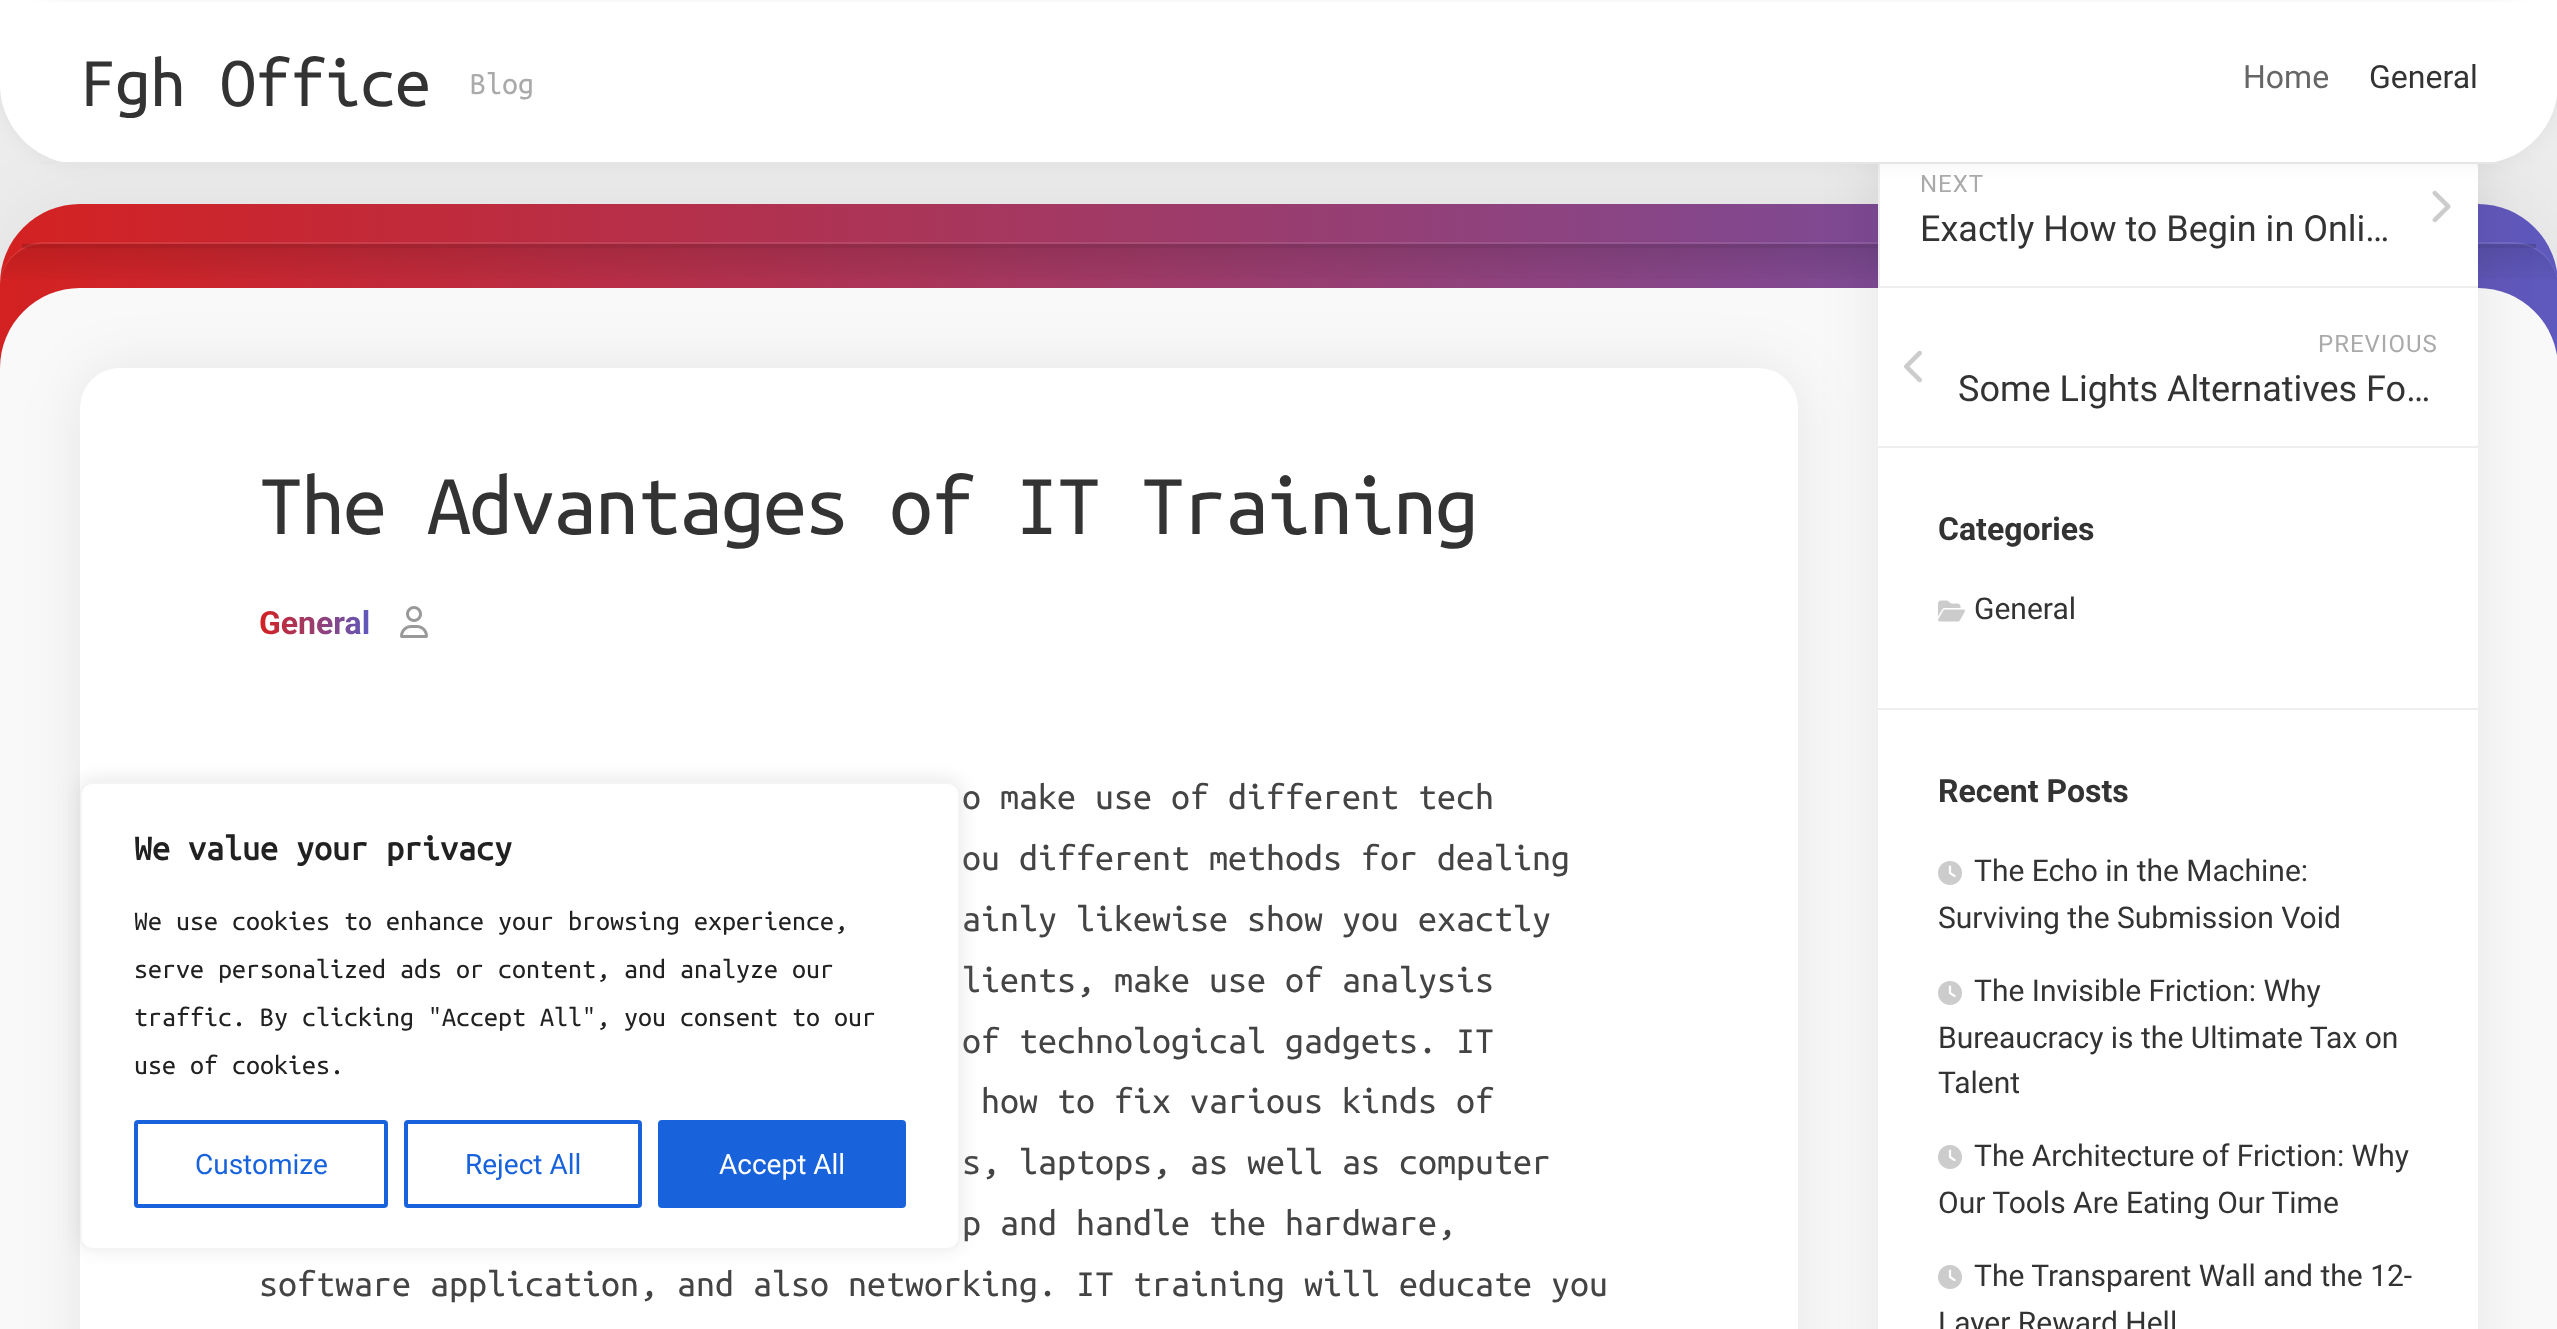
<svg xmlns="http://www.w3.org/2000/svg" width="2557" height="1329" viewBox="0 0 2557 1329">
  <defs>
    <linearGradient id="g1" gradientUnits="userSpaceOnUse" x1="0" y1="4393" x2="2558" y2="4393"><stop offset="0" stop-color="rgb(212,33,33)"/><stop offset="1" stop-color="rgb(94,89,190)"/></linearGradient>
    <clipPath id="clip1"><path d="M44 244H2514C2538.5 244 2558 263.5 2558 288H0C0 263.5 19.5 244 44 244Z"/></clipPath>
    <linearGradient id="g2" gradientUnits="userSpaceOnUse" x1="1279" y1="248" x2="1279" y2="288"><stop offset="0" stop-color="rgb(0,0,0)" stop-opacity="0.1"/><stop offset="1" stop-color="rgb(0,0,0)" stop-opacity="0"/></linearGradient>
    <linearGradient id="g3" gradientUnits="userSpaceOnUse" x1="370" y1="623" x2="259" y2="623"><stop offset="0" stop-color="rgb(94,89,190)"/><stop offset="1" stop-color="rgb(212,33,33)"/></linearGradient>
  </defs>
  <rect width="100%" height="100%" fill="rgb(236,236,236)"/>
  <rect x="0" y="0" width="2557" height="2" fill="rgb(255,255,255)"/>
  <rect x="0" y="204" width="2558" height="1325" rx="80" fill="rgba(0,0,0,0.05)" filter="blur(40px)"/>
  <rect x="0" y="204" width="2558" height="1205" rx="80" fill="url(#g1)"/>
  <rect x="0" y="288" width="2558" height="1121" rx="80" fill="rgb(249,249,249)"/>
  <path d="M44 242C20 242 0 262 0 286C1 263 20 244 44 244H2514C2538 244 2557 263 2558 286C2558 262 2538 242 2514 242Z" fill="rgba(255,255,255,0.1)"/>
  <g clip-path="url(#clip1)">
    <rect x="1" y="248" width="2556" height="31" fill="url(#g2)"/>
  </g>
  <rect x="80" y="368" width="1718" height="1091" rx="40" fill="rgba(0,0,0,0.08)" filter="blur(30px)"/>
  <rect x="80" y="368" width="1718" height="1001" rx="40" fill="rgb(255,255,255)"/>
  <rect x="22" y="244" width="2514" height="4" fill="rgba(0,0,0,0.15)"/>
  <rect x="1878" y="128" width="600" height="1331" rx="40" fill="rgba(0,0,0,0.08)" filter="blur(30px)"/>
  <rect x="1878" y="128" width="600" height="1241" rx="40" fill="rgb(255,255,255)"/>
  <rect x="1878" y="286" width="600" height="2" fill="rgb(238,238,238)"/>
  <rect x="1878" y="164" width="2" height="124" fill="rgb(238,238,238)"/>
  <image x="2432" y="190" width="19" height="33" href="pic2.png"/>
  <rect x="0" y="2" width="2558" height="162" rx="80" fill="rgba(0,0,0,0.05)" filter="blur(10px)"/>
  <path d="M0 2H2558V84C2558 128 2522 164 2478 164H80C36 164 0 128 0 84Z" fill="rgb(255,255,255)"/>
  <rect x="40" y="162" width="2459" height="2" fill="rgb(229,229,229)"/>
  <text x="80" y="106" font-family="Ubuntu Mono" font-size="72" letter-spacing="-1" fill="rgb(51,51,51)">Fgh Office</text>
  <text x="470" y="94" font-family="Ubuntu Mono" font-size="32" fill="rgb(170,170,170)">Blog</text>
  <text x="2243" y="88" font-family="Roboto" font-size="32" fill="rgb(102,102,102)">Home</text>
  <text x="2369" y="88" font-family="Roboto" font-size="32" fill="rgb(51,51,51)">General</text>
  <text x="259" y="534" font-family="Ubuntu Mono" font-size="88" letter-spacing="-2" fill="rgb(51,51,51)">The Advantages of IT Training</text>
  <text x="259" y="634" font-family="Roboto" font-size="32" font-weight="bold" fill="url(#g3)">General</text>
  <image x="400" y="606" width="28" height="32" href="pic1.png"/>
  <g font-family="Ubuntu Mono" font-size="38" fill="rgb(68,68,68)">
    <text>
      <tspan x="962" y="809">o make use of different tech</tspan>
      <tspan x="962" y="870">ou different methods for dealing</tspan>
      <tspan x="962" y="931">ainly likewise show you exactly</tspan>
      <tspan x="962" y="992">lients, make use of analysis</tspan>
      <tspan x="962" y="1053">of technological gadgets. IT</tspan>
    </text>
    <text x="981" y="1113">how to fix various kinds of</text>
    <text>
      <tspan x="962" y="1174">s, laptops, as well as computer</tspan>
      <tspan x="962" y="1235">p and handle the hardware,</tspan>
    </text>
    <text x="259" y="1296">software application, and also networking. IT training will educate you</text>
  </g>
  <text x="1920" y="192" font-family="Roboto" font-size="24" letter-spacing="1" fill="rgb(170,170,170)">NEXT</text>
  <text x="1920" y="241" font-family="Roboto" font-size="36" fill="rgb(51,51,51)">Exactly How to Begin in Onli…</text>
  <rect x="1878" y="446" width="600" height="2" fill="rgb(238,238,238)"/>
  <text x="2318" y="352" font-family="Roboto" font-size="24" letter-spacing="1" fill="rgb(170,170,170)">PREVIOUS</text>
  <image x="1904" y="350" width="18" height="33" href="pic3.png"/>
  <text x="1958" y="401" font-family="Roboto" font-size="36" fill="rgb(51,51,51)">Some Lights Alternatives Fo…</text>
  <rect x="1878" y="708" width="600" height="2" fill="rgb(238,238,238)"/>
  <text x="1938" y="540" font-family="Roboto" font-size="32" font-weight="bold" fill="rgb(51,51,51)">Categories</text>
  <image x="1938" y="600" width="27" height="22" href="pic4.png"/>
  <text x="1974" y="619" font-family="Roboto" font-size="30" fill="rgb(51,51,51)">General</text>
  <text x="1938" y="802" font-family="Roboto" font-size="32" font-weight="bold" fill="rgb(51,51,51)">Recent Posts</text>
  <image x="1938" y="861" width="24" height="24" href="pic5.png"/>
  <g font-family="Roboto" font-size="30" fill="rgb(51,51,51)">
    <text x="1974" y="881">The Echo in the Machine:</text>
    <text x="1938" y="928">Surviving the Submission Void</text>
  </g>
  <image x="1938" y="981" width="24" height="24" href="pic5.png"/>
  <g font-family="Roboto" font-size="30" fill="rgb(51,51,51)">
    <text x="1974" y="1001">The Invisible Friction: Why</text>
    <text>
      <tspan x="1938" y="1048">Bureaucracy is the Ultimate Tax on</tspan>
      <tspan x="1938" y="1093">Talent</tspan>
    </text>
  </g>
  <image x="1938" y="1145" width="24" height="24" href="pic5.png"/>
  <g font-family="Roboto" font-size="30" fill="rgb(51,51,51)">
    <text x="1974" y="1166">The Architecture of Friction: Why</text>
    <text x="1938" y="1213">Our Tools Are Eating Our Time</text>
  </g>
  <image x="1938" y="1265" width="24" height="24" href="pic5.png"/>
  <g font-family="Roboto" font-size="30" fill="rgb(51,51,51)">
    <text x="1974" y="1286">The Transparent Wall and the 12-</text>
    <text x="1938" y="1333">Layer Reward Hell</text>
  </g>
  <rect x="80" y="780" width="880" height="468" rx="12" fill="rgba(172,171,171,0.3)" filter="blur(10px)"/>
  <rect x="81" y="783" width="878" height="466" rx="11" fill="rgb(255,255,255)" stroke="rgb(244,244,244)" stroke-width="2"/>
  <text x="134" y="860" font-family="Ubuntu Mono" font-size="36" font-weight="bold" fill="rgb(33,33,33)">We value your privacy</text>
  <g font-family="Ubuntu Mono" font-size="28" fill="rgb(33,33,33)">
    <text>
      <tspan x="134" y="930">We use cookies to enhance your browsing experience,</tspan>
      <tspan x="134" y="978">serve personalized ads or content, and analyze our</tspan>
      <tspan x="134" y="1026">traffic. By clicking "Accept All", you consent to our</tspan>
      <tspan x="134" y="1074">use of cookies.</tspan>
    </text>
  </g>
  <rect x="136" y="1122" width="250" height="84" rx="2" fill="none" stroke="rgb(24,99,220)" stroke-width="4"/>
  <text x="195" y="1174" font-family="Roboto" font-size="28" fill="rgb(24,99,220)">Customize</text>
  <rect x="406" y="1122" width="234" height="84" rx="2" fill="none" stroke="rgb(24,99,220)" stroke-width="4"/>
  <text x="465" y="1174" font-family="Roboto" font-size="28" fill="rgb(24,99,220)">Reject All</text>
  <rect x="660" y="1122" width="244" height="84" rx="2" fill="rgb(24,99,220)" stroke="rgb(24,99,220)" stroke-width="4"/>
  <text x="719" y="1174" font-family="Roboto" font-size="28" fill="rgb(255,255,255)">Accept All</text>
</svg>
